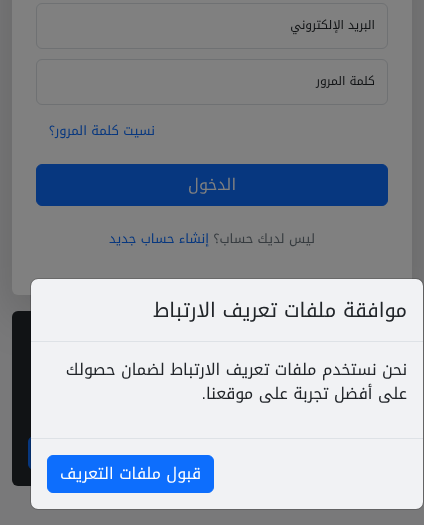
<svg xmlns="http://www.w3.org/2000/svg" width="424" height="525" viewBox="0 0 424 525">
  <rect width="100%" height="100%" fill="rgb(121,121,122)"/>
  <rect x="12" y="-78" width="400" height="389" rx="6" fill="rgba(0,0,0,0.18)" filter="blur(24px)"/>
  <rect x="12" y="-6" width="400" height="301" rx="6" fill="rgb(128,128,128)"/>
  <rect x="36.5" y="3.5" width="351" height="45" rx="5.5" fill="none" stroke="rgb(111,113,115)"/>
  <text x="375" y="29" font-family="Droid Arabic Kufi" font-size="12" direction="rtl" fill="rgb(17,19,21)">البريد الإلكتروني</text>
  <rect x="36.5" y="59.5" width="351" height="45" rx="5.5" fill="none" stroke="rgb(111,113,115)"/>
  <text x="375" y="85" font-family="Droid Arabic Kufi" font-size="12" direction="rtl" fill="rgb(17,19,21)">كلمة المرور</text>
  <text x="155" y="135" font-family="Droid Arabic Kufi" font-size="13" direction="rtl" fill="rgb(7,55,127)">نسيت كلمة المرور؟</text>
  <rect x="36.5" y="164.5" width="351" height="41" rx="5.5" fill="rgb(7,55,127)" stroke="rgb(7,55,127)"/>
  <text x="236" y="190" font-family="Droid Arabic Kufi" font-size="16" direction="rtl" fill="rgb(128,128,128)">الدخول</text>
  <text x="315" y="243" font-family="Droid Arabic Kufi" font-size="13" direction="rtl" fill="rgb(54,59,63)">ليس لديك حساب؟</text>
  <text x="209" y="243" font-family="Droid Arabic Kufi" font-size="13" direction="rtl" fill="rgb(7,55,127)">إنشاء حساب جديد</text>
  <rect x="12" y="311" width="400" height="175" rx="6" fill="rgb(17,19,21)"/>
  <rect x="28.5" y="436.5" width="60" height="33" rx="5.5" fill="rgb(7,55,127)" stroke="rgb(7,55,127)"/>
  <rect x="31" y="279" width="392" height="230" rx="7" fill="rgb(241,242,244)"/>
  <rect x="30.5" y="278.5" width="393" height="231" rx="7.5" fill="none" stroke="rgba(0,0,0,0.18)"/>
  <rect x="31" y="341" width="392" height="1" fill="rgb(222,226,230)"/>
  <text x="407" y="317" font-family="Droid Arabic Kufi" font-size="20" direction="rtl" fill="rgb(33,37,41)">موافقة ملفات تعريف الارتباط</text>
  <g font-family="Droid Arabic Kufi" font-size="16" direction="rtl" fill="rgb(33,37,41)">
    <text>
      <tspan x="407" y="375">نحن نستخدم ملفات تعريف الارتباط لضمان حصولك</tspan>
      <tspan x="407" y="399">على أفضل تجربة على موقعنا</tspan>
    </text>
  </g>
  <text x="206" y="399" font-family="Liberation Sans" font-size="16" direction="rtl" fill="rgb(33,37,41)">.</text>
  <rect x="31" y="438" width="392" height="1" fill="rgb(222,226,230)"/>
  <rect x="47.5" y="455.5" width="166" height="37" rx="5.5" fill="rgb(13,110,253)" stroke="rgb(13,110,253)"/>
  <text x="201" y="479" font-family="Droid Arabic Kufi" font-size="16" direction="rtl" fill="rgb(255,255,255)">قبول ملفات التعريف</text>
</svg>
